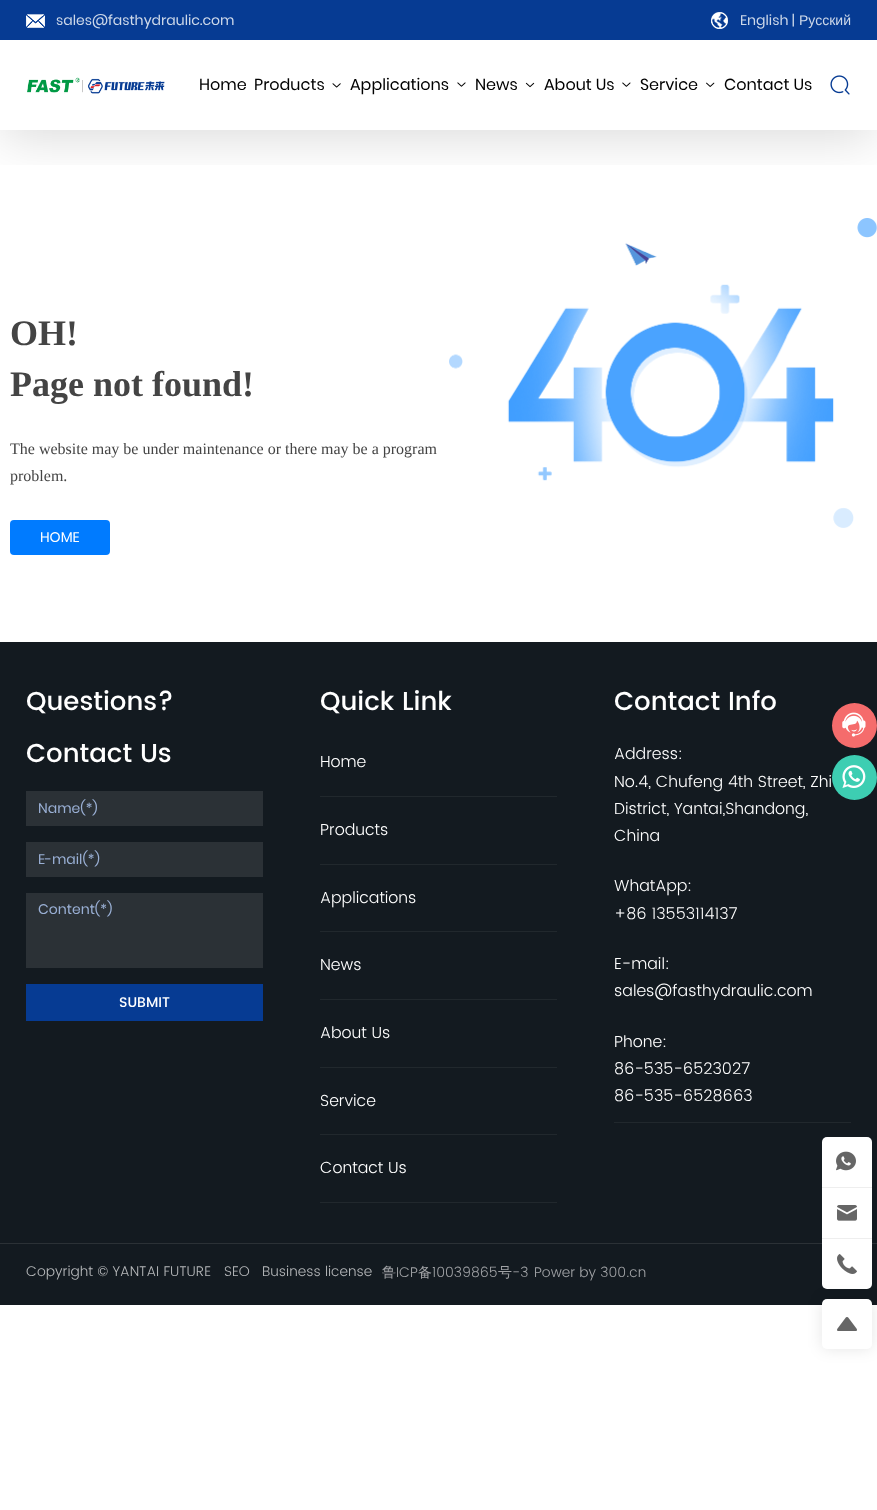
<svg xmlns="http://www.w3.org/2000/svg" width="877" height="1510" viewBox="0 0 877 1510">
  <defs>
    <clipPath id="clip1"><rect x="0" y="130" width="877" height="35"/></clipPath>
  </defs>
  <rect width="100%" height="100%" fill="rgb(255,255,255)"/>
  <g clip-path="url(#clip1)">
    <rect x="2" y="12" width="873" height="126" fill="rgba(0,0,0,0.14)" filter="blur(25px)"/>
  </g>
  <rect x="0" y="0" width="877" height="40" fill="rgb(6,59,147)"/>
  <image x="26" y="14" width="19" height="14" href="pic1.png"/>
  <text x="56" y="25" font-family="Poppins" font-size="14" fill="rgb(205,216,233)">sales@fasthydraulic.com</text>
  <image x="711" y="12" width="17" height="17" href="pic2.png"/>
  <text x="740" y="25" font-family="Poppins" font-size="14" fill="rgb(205,216,233)">English |</text>
  <text x="799" y="25" font-family="Liberation Sans" font-size="14" fill="rgb(205,216,233)">Русский</text>
  <image x="27" y="77" width="138" height="17" href="pic3.png"/>
  <g font-family="Poppins" font-size="16" fill="rgb(0,0,0)">
    <text x="199" y="90">Home</text>
    <text x="254" y="90">Products</text>
  </g>
  <image x="332" y="83" width="9" height="5" href="pic4.png"/>
  <text x="350" y="90" font-family="Poppins" font-size="16" fill="rgb(0,0,0)">Applications</text>
  <image x="457" y="82" width="9" height="5" href="pic5.png"/>
  <text x="475" y="90" font-family="Poppins" font-size="16" fill="rgb(0,0,0)">News</text>
  <image x="525" y="82" width="10" height="6" href="pic6.png"/>
  <text x="544" y="90" font-family="Poppins" font-size="16" fill="rgb(0,0,0)">About Us</text>
  <image x="622" y="82" width="9" height="5" href="pic7.png"/>
  <text x="640" y="90" font-family="Poppins" font-size="16" fill="rgb(0,0,0)">Service</text>
  <image x="706" y="82" width="9" height="5" href="pic8.png"/>
  <text x="724" y="90" font-family="Poppins" font-size="16" fill="rgb(0,0,0)">Contact Us</text>
  <image x="830" y="75" width="20" height="20" href="pic9.png"/>
  <g font-family="Liberation Serif" font-size="36" font-weight="bold" fill="rgb(68,68,68)">
    <text>
      <tspan x="10" y="345">OH!</tspan>
      <tspan x="10" y="396">Page not found!</tspan>
    </text>
  </g>
  <g font-family="Liberation Serif" font-size="16" fill="rgb(68,68,68)">
    <text>
      <tspan x="10" y="454">The website may be under maintenance or there may be a program</tspan>
      <tspan x="10" y="481">problem.</tspan>
    </text>
  </g>
  <rect x="10" y="520" width="100" height="35" rx="4" fill="rgb(0,123,255)"/>
  <text x="40" y="542" font-family="Poppins" font-size="14" fill="rgb(255,255,255)">HOME</text>
  <image x="449" y="218" width="428" height="310" href="pic10.png"/>
  <rect x="0" y="642" width="877" height="663" fill="rgb(19,26,32)"/>
  <g font-family="Poppins" font-size="26" font-weight="500" fill="rgb(255,255,255)">
    <text x="26" y="710">Questions?</text>
    <text x="26" y="762">Contact Us</text>
  </g>
  <rect x="26" y="791" width="237" height="35" fill="rgb(43,49,54)"/>
  <text x="38" y="813" font-family="Poppins" font-size="14" fill="rgb(153,175,212)">Name(*)</text>
  <rect x="26" y="842" width="237" height="35" fill="rgb(43,49,54)"/>
  <text x="38" y="864" font-family="Poppins" font-size="14" fill="rgb(153,175,212)">E-mail(*)</text>
  <rect x="26" y="893" width="237" height="75" fill="rgb(43,49,54)"/>
  <text x="38" y="914" font-family="Poppins" font-size="14" fill="rgb(153,175,212)">Content(*)</text>
  <rect x="26" y="984" width="237" height="37" fill="rgb(6,59,147)"/>
  <text x="119" y="1007" font-family="Poppins" font-size="14" font-weight="500" fill="rgb(255,255,255)">SUBMIT</text>
  <text x="320" y="710" font-family="Poppins" font-size="26" font-weight="500" fill="rgb(255,255,255)">Quick Link</text>
  <rect x="320" y="796" width="237" height="1" fill="rgb(33,40,45)"/>
  <text x="320" y="767" font-family="Poppins" font-size="16" font-weight="300" fill="rgb(255,255,255)">Home</text>
  <rect x="320" y="864" width="237" height="1" fill="rgb(33,40,45)"/>
  <text x="320" y="835" font-family="Poppins" font-size="16" font-weight="300" fill="rgb(255,255,255)">Products</text>
  <rect x="320" y="931" width="237" height="1" fill="rgb(33,40,45)"/>
  <text x="320" y="903" font-family="Poppins" font-size="16" font-weight="300" fill="rgb(255,255,255)">Applications</text>
  <rect x="320" y="999" width="237" height="1" fill="rgb(33,40,45)"/>
  <text x="320" y="970" font-family="Poppins" font-size="16" font-weight="300" fill="rgb(255,255,255)">News</text>
  <rect x="320" y="1067" width="237" height="1" fill="rgb(33,40,45)"/>
  <text x="320" y="1038" font-family="Poppins" font-size="16" font-weight="300" fill="rgb(255,255,255)">About Us</text>
  <rect x="320" y="1134" width="237" height="1" fill="rgb(33,40,45)"/>
  <text x="320" y="1106" font-family="Poppins" font-size="16" font-weight="300" fill="rgb(255,255,255)">Service</text>
  <rect x="320" y="1202" width="237" height="1" fill="rgb(33,40,45)"/>
  <text x="320" y="1173" font-family="Poppins" font-size="16" font-weight="300" fill="rgb(255,255,255)">Contact Us</text>
  <text x="614" y="710" font-family="Poppins" font-size="26" font-weight="500" fill="rgb(255,255,255)">Contact Info</text>
  <rect x="614" y="1122" width="237" height="1" fill="rgb(33,40,45)"/>
  <g font-family="Poppins" font-size="16" font-weight="300" fill="rgb(255,255,255)">
    <text>
      <tspan x="614" y="759">Address:</tspan>
      <tspan x="614" y="787">No.4, Chufeng 4th Street, Zhi</tspan>
      <tspan x="614" y="814">District, Yantai,Shandong,</tspan>
      <tspan x="614" y="841">China</tspan>
    </text>
    <text>
      <tspan x="614" y="891">WhatApp:</tspan>
      <tspan x="614" y="919">+86 13553114137</tspan>
    </text>
    <text>
      <tspan x="614" y="969">E-mail:</tspan>
      <tspan x="614" y="996">sales@fasthydraulic.com</tspan>
    </text>
    <text>
      <tspan x="614" y="1047">Phone:</tspan>
      <tspan x="614" y="1074">86-535-6523027</tspan>
      <tspan x="614" y="1101">86-535-6528663</tspan>
    </text>
  </g>
  <rect x="0" y="1243" width="877" height="1" fill="rgb(43,49,54)"/>
  <g font-family="Poppins" font-size="14" font-weight="300" fill="rgb(182,184,186)">
    <text x="26" y="1276">Copyright © YANTAI FUTURE</text>
    <text x="224" y="1276">SEO</text>
    <text x="262" y="1276">Business license</text>
  </g>
  <text x="382" y="1277" font-family="WenQuanYi Zen Hei" font-size="14" font-weight="500" fill="rgb(161,163,166)">鲁</text>
  <text x="396" y="1277" font-family="Poppins" font-size="14" font-weight="300" fill="rgb(161,163,166)">ICP</text>
  <text x="418" y="1277" font-family="WenQuanYi Zen Hei" font-size="14" font-weight="500" fill="rgb(161,163,166)">备</text>
  <text x="432" y="1277" font-family="Poppins" font-size="14" font-weight="300" fill="rgb(161,163,166)">10039865</text>
  <text x="498" y="1277" font-family="WenQuanYi Zen Hei" font-size="14" font-weight="500" fill="rgb(161,163,166)">号</text>
  <g font-family="Poppins" font-size="14" font-weight="300" fill="rgb(161,163,166)">
    <text x="512" y="1277">-3</text>
    <text x="534" y="1277">Power by 300.cn</text>
  </g>
  <rect x="822" y="1137" width="50" height="152" rx="5" fill="rgb(255,255,255)"/>
  <rect x="822" y="1187" width="50" height="1" fill="rgb(238,238,238)"/>
  <image x="836" y="1151" width="20" height="20" href="pic11.png"/>
  <rect x="822" y="1238" width="50" height="1" fill="rgb(238,238,238)"/>
  <image x="837" y="1205" width="20" height="16" href="pic12.png"/>
  <image x="837" y="1254" width="20" height="20" href="pic13.png"/>
  <rect x="822" y="1299" width="50" height="50" rx="5" fill="rgba(0,0,0,0.1)" filter="blur(7.5px)"/>
  <rect x="822" y="1299" width="50" height="50" rx="5" fill="rgb(255,255,255)"/>
  <image x="837" y="1317" width="20" height="14" href="pic14.png"/>
  <circle cx="854.5" cy="725.5" r="22.5" fill="rgb(245,108,108)"/>
  <image x="842" y="712" width="24" height="25" href="pic15.png"/>
  <circle cx="854.5" cy="777.5" r="22.5" fill="rgb(61,206,178)"/>
  <image x="842" y="765" width="24" height="23" href="pic16.png"/>
</svg>
